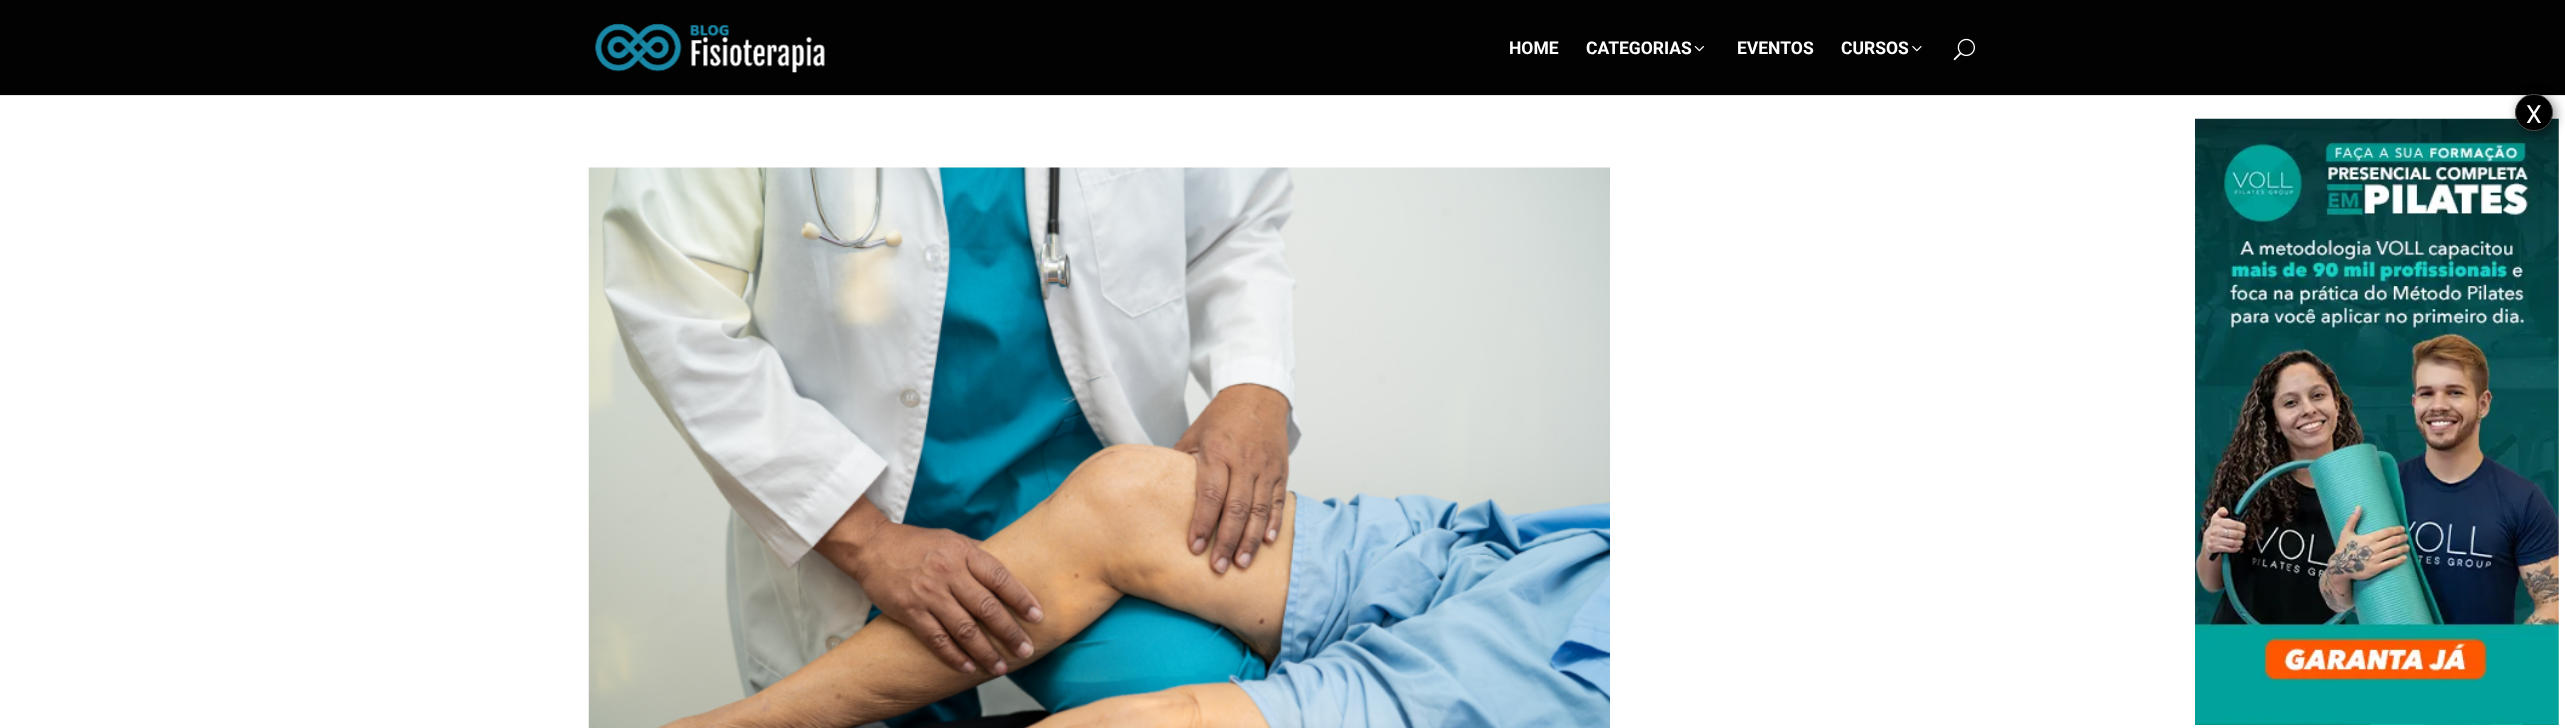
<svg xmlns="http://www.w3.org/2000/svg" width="2565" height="728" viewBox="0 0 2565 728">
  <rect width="100%" height="100%" fill="rgb(255,255,255)"/>
  <rect x="0" y="95" width="2565" height="1" fill="rgb(230,230,230)"/>
  <rect x="0" y="0" width="2565" height="95" fill="rgb(2,2,2)"/>
  <image x="595" y="23" width="230" height="50" href="pic1.png"/>
  <g font-family="Roboto" font-size="17.5" font-weight="bold" fill="rgb(255,255,255)">
    <text x="1509" y="54">HOME</text>
    <text x="1586" y="54">CATEGORIAS</text>
  </g>
  <image x="1694" y="46" width="10" height="6" href="pic2.png"/>
  <g font-family="Roboto" font-size="17.5" font-weight="bold" fill="rgb(255,255,255)">
    <text x="1737" y="54">EVENTOS</text>
    <text x="1841" y="54">CURSOS</text>
  </g>
  <image x="1912" y="46" width="10" height="6" href="pic3.png"/>
  <image x="1953" y="38" width="22" height="23" href="pic4.png"/>
  <image x="588" y="167" width="1022" height="561" href="pic5.png"/>
  <image x="2195" y="118" width="364" height="607" href="pic6.png"/>
  <rect x="2518" y="96" width="37" height="38" rx="18.5" fill="rgba(0,0,0,0.52)" filter="blur(6px)"/>
  <rect x="2515.5" y="94.5" width="37" height="36" rx="18" fill="rgb(0,0,0)" stroke="rgb(76,76,76)"/>
  <text x="2526" y="123" font-family="Roboto" font-size="25" fill="rgb(255,255,255)">X</text>
</svg>
